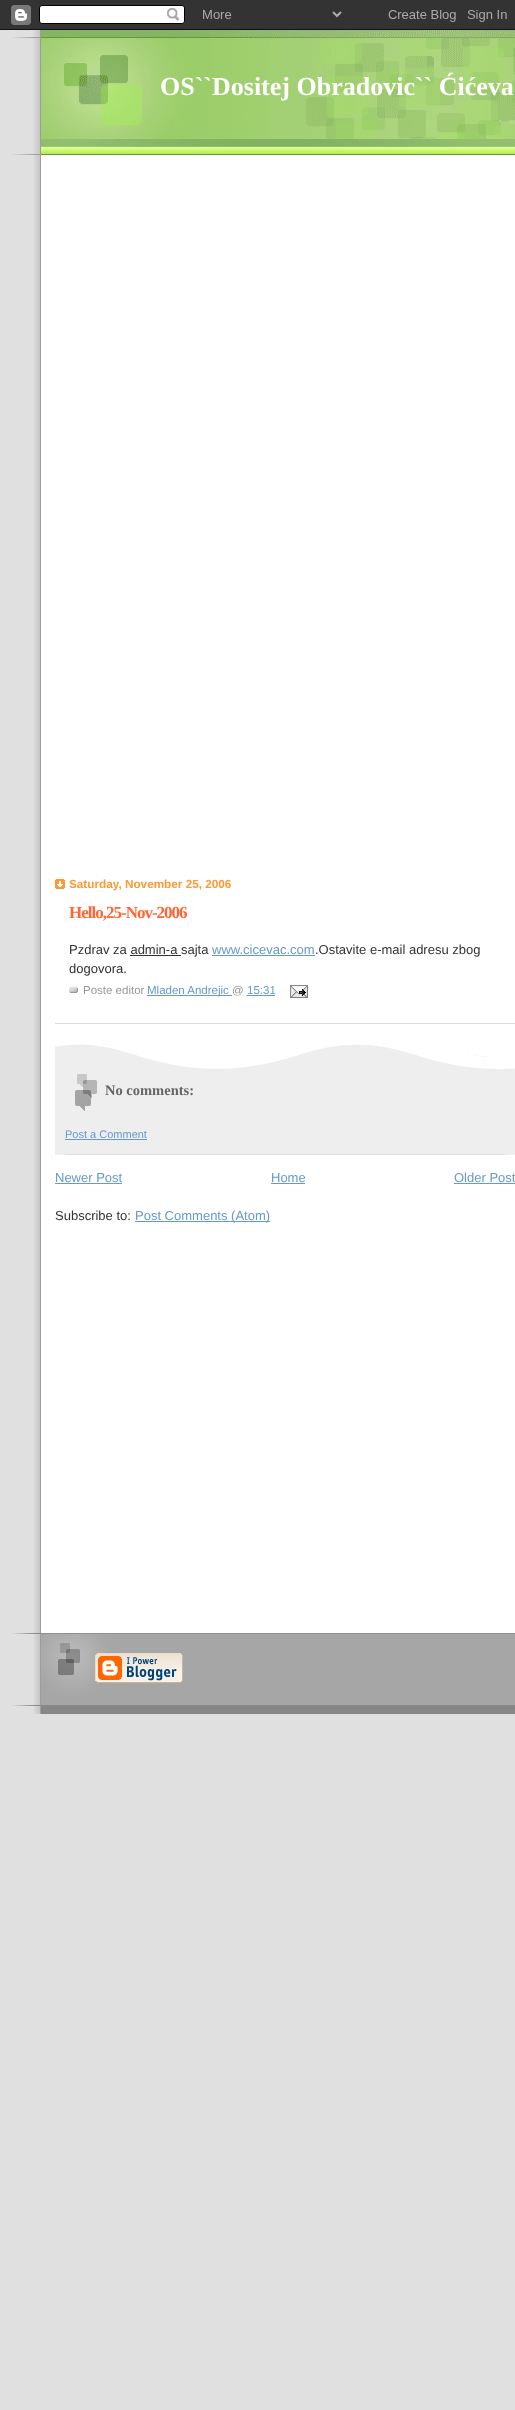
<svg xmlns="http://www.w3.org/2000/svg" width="515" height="2410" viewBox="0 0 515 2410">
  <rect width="100%" height="100%" fill="rgb(224,224,224)"/>
  <image x="0" y="0" width="515" height="30" href="pic1.png"/>
  <image x="34" y="155" width="481" height="1559" href="pic2.png"/>
  <image x="11" y="30" width="504" height="124" href="pic3.png"/>
  <image x="11" y="139" width="504" height="16" href="pic4.png"/>
  <text x="160" y="95" font-family="Liberation Serif" font-size="26" font-weight="bold" fill="rgb(255,255,255)">OS``Dositej Obradovic`` Ćićeva</text>
  <image x="55" y="879" width="10" height="10" href="pic5.png"/>
  <text x="69" y="888" font-family="Liberation Sans" font-size="11.75" font-weight="bold" fill="rgb(255,153,51)">Saturday, November 25, 2006</text>
  <rect x="55" y="1023" width="460" height="1" fill="rgb(221,221,221)"/>
  <text x="69" y="918" font-family="Liberation Serif" font-size="17" font-weight="bold" letter-spacing="-1" fill="rgb(255,102,51)">Hello,25-Nov-2006</text>
  <text x="69" y="954" font-family="Liberation Sans" font-size="13" fill="rgb(51,51,51)">Pzdrav za admin-a sajta</text>
  <rect x="130" y="955" width="51" height="1" fill="rgb(51,51,51)"/>
  <text x="212" y="954" font-family="Liberation Sans" font-size="13" fill="rgb(102,153,204)">www.cicevac.com</text>
  <text x="315" y="954" font-family="Liberation Sans" font-size="13" fill="rgb(51,51,51)">.Ostavite e-mail adresu zbog</text>
  <rect x="212" y="955" width="103" height="1" fill="rgb(102,153,204)"/>
  <text x="69" y="973" font-family="Liberation Sans" font-size="13" fill="rgb(51,51,51)">dogovora.</text>
  <image x="69" y="987" width="9" height="6" href="pic6.png"/>
  <text x="83" y="994" font-family="Liberation Sans" font-size="11.5" fill="rgb(153,153,153)">Poste editor</text>
  <rect x="147" y="995" width="85" height="1" fill="rgb(102,153,204)"/>
  <text x="147" y="994" font-family="Liberation Sans" font-size="11.5" fill="rgb(102,153,204)">Mladen Andrejic</text>
  <text x="232" y="994" font-family="Liberation Sans" font-size="11.5" fill="rgb(153,153,153)">@</text>
  <text x="247" y="994" font-family="Liberation Sans" font-size="11.5" fill="rgb(102,153,204)">15:31</text>
  <path d="M246.5 995.5H275" fill="none" stroke="rgb(102,153,204)" stroke-dasharray="1 1"/>
  <rect x="247" y="995" width="28" height="1" fill="rgb(102,153,204)"/>
  <image x="290" y="985" width="18" height="13" href="pic7.png"/>
  <rect x="55" y="1045" width="460" height="110" fill="rgb(238,238,238)"/>
  <image x="55" y="1044" width="460" height="25" href="pic8.png"/>
  <image x="75" y="1074" width="22" height="37" href="pic9.png"/>
  <text x="105" y="1095" font-family="Liberation Serif" font-size="14.5" font-weight="bold" fill="rgb(102,102,102)">No comments:</text>
  <rect x="65" y="1154" width="440" height="1" fill="rgb(221,221,221)"/>
  <text x="65" y="1138" font-family="Liberation Sans" font-size="11" fill="rgb(102,153,204)">Post a Comment</text>
  <rect x="65" y="1139" width="82" height="1" fill="rgb(102,153,204)"/>
  <text x="55" y="1182" font-family="Liberation Sans" font-size="13" fill="rgb(102,153,204)">Newer Post</text>
  <rect x="55" y="1183" width="67" height="1" fill="rgb(102,153,204)"/>
  <text x="271" y="1182" font-family="Liberation Sans" font-size="13" fill="rgb(102,153,204)">Home</text>
  <rect x="271" y="1183" width="34" height="1" fill="rgb(102,153,204)"/>
  <text x="454" y="1182" font-family="Liberation Sans" font-size="13" fill="rgb(102,153,204)">Older Post</text>
  <rect x="454" y="1183" width="61" height="1" fill="rgb(102,153,204)"/>
  <text x="55" y="1220" font-family="Liberation Sans" font-size="13" fill="rgb(51,51,51)">Subscribe to:</text>
  <rect x="135" y="1221" width="135" height="1" fill="rgb(102,153,204)"/>
  <text x="135" y="1220" font-family="Liberation Sans" font-size="13" fill="rgb(102,153,204)">Post Comments (Atom)</text>
  <image x="11" y="1705" width="504" height="9" href="pic10.png"/>
  <image x="11" y="1633" width="504" height="72" href="pic11.png"/>
  <image x="95" y="1653" width="88" height="30" href="pic12.png"/>
</svg>
